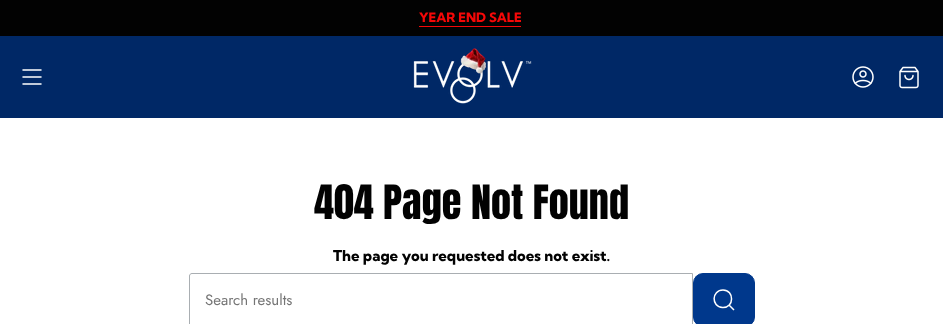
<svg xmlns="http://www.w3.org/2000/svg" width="943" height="324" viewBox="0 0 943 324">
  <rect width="100%" height="100%" fill="rgb(255,255,255)"/>
  <rect x="0" y="0" width="943" height="36" fill="rgb(2,2,2)"/>
  <text x="419" y="22" font-family="Kumbh Sans" font-size="13" font-weight="800" fill="rgb(244,8,8)">YEAR END SALE</text>
  <rect x="419" y="26" width="102" height="1" fill="rgb(244,8,8)"/>
  <rect x="0" y="36" width="943" height="82" fill="rgb(0,40,102)"/>
  <path d="M23 70H41M23 77H41M23 84H41" fill="none" stroke="rgb(255,255,255)" stroke-width="1.5" stroke-linecap="round" stroke-linejoin="round"/>
  <image x="413" y="48" width="119" height="56" href="pic1.png"/>
  <image x="852" y="66" width="22" height="22" href="pic2.png"/>
  <image x="899" y="66" width="20" height="23" href="pic3.png"/>
  <text x="314" y="219" font-family="Anton" font-size="40.25" fill="rgb(2,2,2)">404 Page Not Found</text>
  <text x="333" y="261" font-family="Kumbh Sans" font-size="15" font-weight="800" fill="rgb(2,2,2)">The page you requested does not exist.</text>
  <path d="M192 273.5H692.5V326.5H192C190.5 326.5 189.5 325.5 189.5 324V276C189.5 274.5 190.5 273.5 192 273.5Z" fill="none" stroke="rgb(169,174,178)"/>
  <text x="205" y="305" font-family="Jost" font-size="15" fill="rgb(117,117,117)">Search results</text>
  <rect x="693.5" y="273.5" width="61" height="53" rx="9.5" fill="rgb(0,56,140)" stroke="rgb(0,56,140)"/>
  <path d="M723 290C734.5 290 734.5 308 722.5 307.5C711 307 711.5 290 723 290ZM729 305L734 310" fill="none" stroke="rgb(255,255,255)" stroke-width="1.5"/>
</svg>
